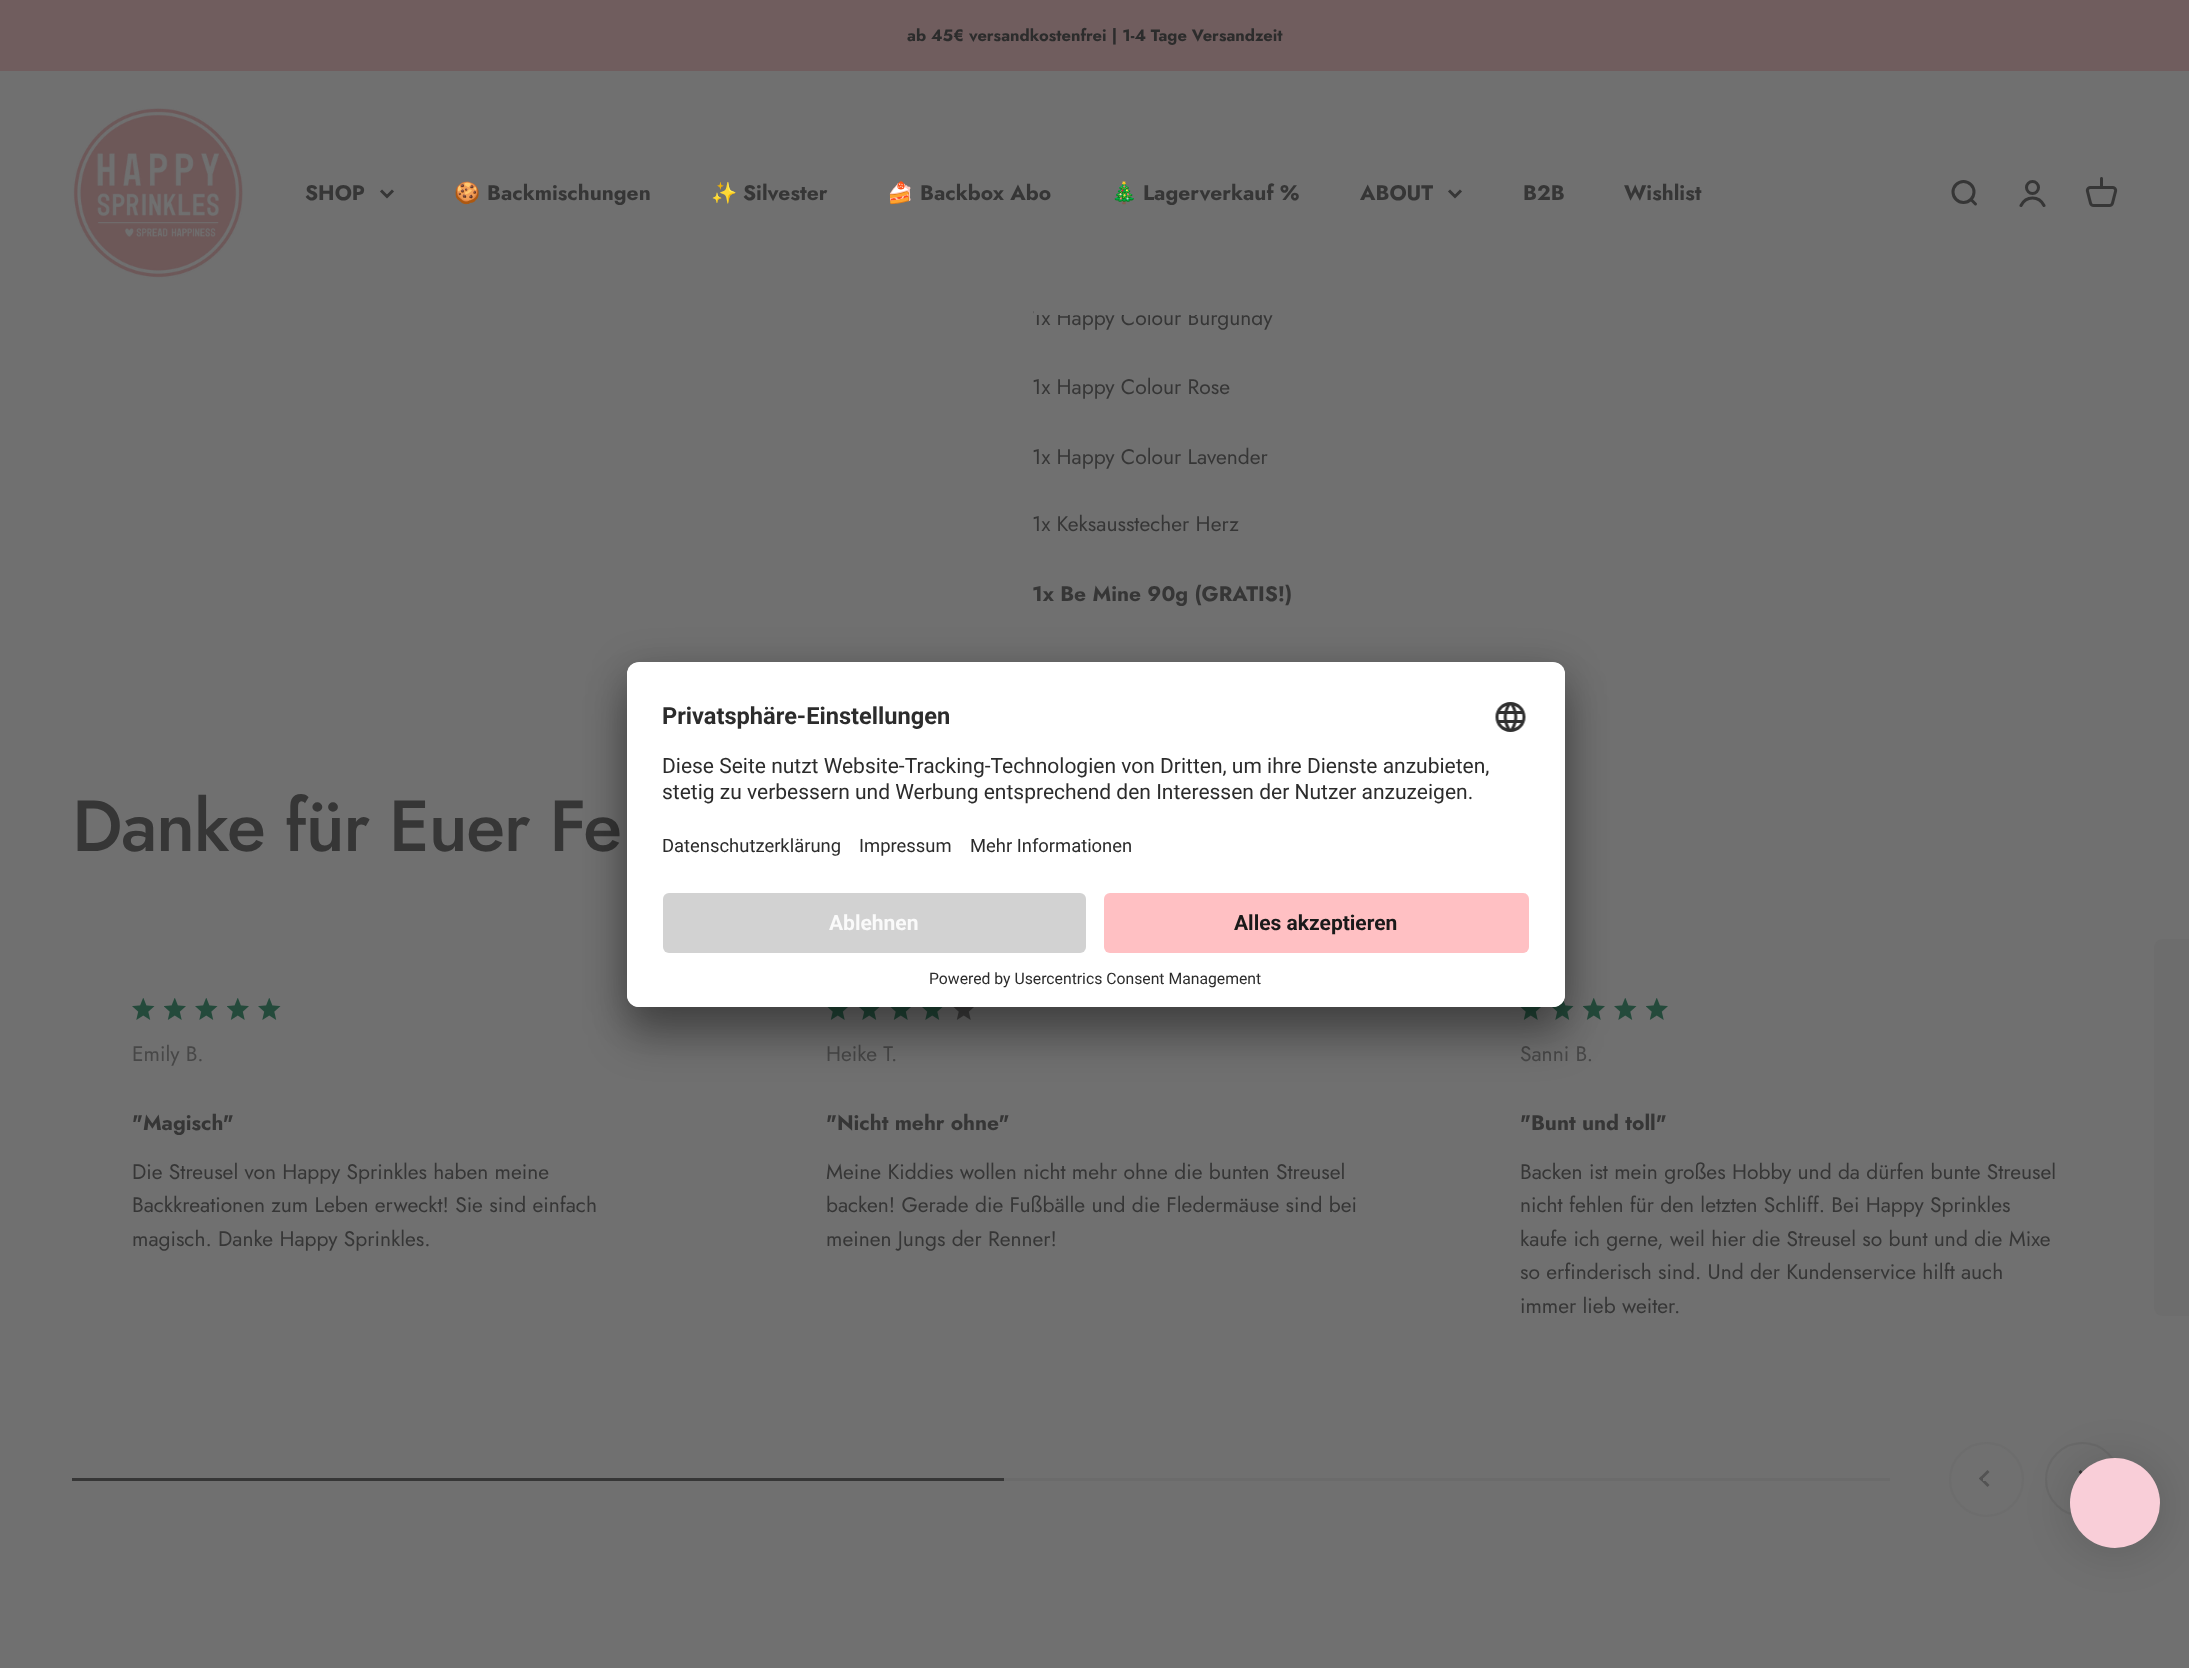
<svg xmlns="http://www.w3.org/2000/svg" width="2189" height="1668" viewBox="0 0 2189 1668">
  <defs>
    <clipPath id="clip1"><rect x="627" y="662" width="938" height="345" rx="12"/></clipPath>
    <clipPath id="clip2"><path d="M639 662H1553C1559.5 662 1565 667.5 1565 674V881H627V674C627 667.5 632.5 662 639 662Z"/></clipPath>
  </defs>
  <rect width="100%" height="100%" fill="rgb(112,112,112)"/>
  <rect x="0" y="0" width="2189" height="71" fill="rgb(112,93,94)"/>
  <text x="907" y="41" font-family="Jost" font-size="16.5" font-weight="bold" fill="rgb(44,44,44)">ab 45€ versandkostenfrei | 1-4 Tage Versandzeit</text>
  <text x="1032" y="325" font-family="Jost" font-size="21" fill="rgb(54,54,54)">1x Happy Colour Burgundy</text>
  <rect x="1034" y="308" width="228" height="7" fill="rgb(112,112,112)"/>
  <image x="73" y="108" width="170" height="170" href="pic1.png"/>
  <text x="305" y="200" font-family="Jost" font-size="21" font-weight="bold" fill="rgb(54,54,54)">SHOP</text>
  <path d="M381 190.5L387 196.5L393 190.5" fill="none" stroke="rgb(54,54,54)" stroke-width="3"/>
  <text x="454" y="200" font-family="Noto Color Emoji" font-size="21" font-weight="bold" fill="rgb(54,54,54)">🍪</text>
  <text x="487" y="200" font-family="Jost" font-size="21" font-weight="bold" fill="rgb(54,54,54)">Backmischungen</text>
  <text x="711" y="200" font-family="Noto Color Emoji" font-size="21" font-weight="bold" fill="rgb(54,54,54)">✨</text>
  <text x="743" y="200" font-family="Jost" font-size="21" font-weight="bold" fill="rgb(54,54,54)">Silvester</text>
  <text x="887" y="200" font-family="Noto Color Emoji" font-size="21" font-weight="bold" fill="rgb(54,54,54)">🍰</text>
  <text x="920" y="200" font-family="Jost" font-size="21" font-weight="bold" fill="rgb(54,54,54)">Backbox Abo</text>
  <text x="1111" y="200" font-family="Noto Color Emoji" font-size="21" font-weight="bold" fill="rgb(54,54,54)">🎄</text>
  <g font-family="Jost" font-size="21" font-weight="bold" fill="rgb(54,54,54)">
    <text x="1143" y="200">Lagerverkauf %</text>
    <text x="1360" y="200">ABOUT</text>
  </g>
  <path d="M1449 190.5L1455 196.5L1461 190.5" fill="none" stroke="rgb(54,54,54)" stroke-width="3"/>
  <g font-family="Jost" font-size="21" font-weight="bold" fill="rgb(54,54,54)">
    <text x="1523" y="200">B2B</text>
    <text x="1624" y="200">Wishlist</text>
  </g>
  <circle cx="1963.5" cy="192" r="10.5" fill="none" stroke="rgb(54,54,54)" stroke-width="3"/>
  <path d="M1971 199.5L1975.5 204" fill="none" stroke="rgb(54,54,54)" stroke-width="3" stroke-linecap="round" stroke-linejoin="round"/>
  <circle cx="2032.5" cy="187.5" r="6" fill="none" stroke="rgb(54,54,54)" stroke-width="3"/>
  <path d="M2021 205.5C2026 195.5 2039 195.5 2044 205.5" fill="none" stroke="rgb(54,54,54)" stroke-width="3" stroke-linecap="round"/>
  <image x="2085" y="177" width="33" height="30" href="pic2.png"/>
  <g font-family="Jost" font-size="21" fill="rgb(54,54,54)">
    <text x="1032" y="394">1x Happy Colour Rose</text>
    <text x="1032" y="464">1x Happy Colour Lavender</text>
    <text x="1032" y="531">1x Keksausstecher Herz</text>
  </g>
  <text x="1032" y="601" font-family="Jost" font-size="21" font-weight="bold" fill="rgb(54,54,54)">1x Be Mine 90g (GRATIS!)</text>
  <text x="72" y="851" font-family="Jost" font-size="72" font-weight="500" letter-spacing="-1.4" fill="rgb(54,54,54)">Danke für Euer Fe</text>
  <image x="132" y="998" width="23" height="22" href="pic3.png"/>
  <image x="164" y="998" width="22" height="22" href="pic4.png"/>
  <image x="195" y="998" width="23" height="22" href="pic3.png"/>
  <image x="227" y="998" width="22" height="22" href="pic4.png"/>
  <image x="258" y="998" width="23" height="22" href="pic3.png"/>
  <text x="132" y="1061" font-family="Jost" font-size="21" fill="rgb(71,71,71)">Emily B.</text>
  <text x="132" y="1130" font-family="Jost" font-size="21" font-weight="bold" fill="rgb(54,54,54)">"Magisch"</text>
  <g font-family="Jost" font-size="21" fill="rgb(54,54,54)">
    <text>
      <tspan x="132" y="1179">Die Streusel von Happy Sprinkles haben meine</tspan>
      <tspan x="132" y="1212">Backkreationen zum Leben erweckt! Sie sind einfach</tspan>
      <tspan x="132" y="1246">magisch. Danke Happy Sprinkles.</tspan>
    </text>
  </g>
  <image x="827" y="1007" width="21" height="13" href="pic5.png"/>
  <image x="859" y="1007" width="21" height="13" href="pic6.png"/>
  <image x="890" y="1007" width="21" height="13" href="pic5.png"/>
  <image x="922" y="1007" width="21" height="13" href="pic6.png"/>
  <image x="953" y="1007" width="21" height="13" href="pic7.png"/>
  <text x="826" y="1061" font-family="Jost" font-size="21" fill="rgb(71,71,71)">Heike T.</text>
  <text x="826" y="1130" font-family="Jost" font-size="21" font-weight="bold" fill="rgb(54,54,54)">"Nicht mehr ohne"</text>
  <g font-family="Jost" font-size="21" fill="rgb(54,54,54)">
    <text>
      <tspan x="826" y="1179">Meine Kiddies wollen nicht mehr ohne die bunten Streusel</tspan>
      <tspan x="826" y="1212">backen! Gerade die Fußbälle und die Fledermäuse sind bei</tspan>
      <tspan x="826" y="1246">meinen Jungs der Renner!</tspan>
    </text>
  </g>
  <image x="1520" y="1007" width="21" height="13" href="pic5.png"/>
  <image x="1552" y="999" width="22" height="21" href="pic8.png"/>
  <image x="1583" y="998" width="22" height="22" href="pic4.png"/>
  <image x="1614" y="998" width="23" height="22" href="pic3.png"/>
  <image x="1646" y="998" width="22" height="22" href="pic4.png"/>
  <text x="1520" y="1061" font-family="Jost" font-size="21" fill="rgb(71,71,71)">Sanni B.</text>
  <text x="1520" y="1130" font-family="Jost" font-size="21" font-weight="bold" fill="rgb(54,54,54)">"Bunt und toll"</text>
  <g font-family="Jost" font-size="21" fill="rgb(54,54,54)">
    <text>
      <tspan x="1520" y="1179">Backen ist mein großes Hobby und da dürfen bunte Streusel</tspan>
      <tspan x="1520" y="1212">nicht fehlen für den letzten Schliff. Bei Happy Sprinkles</tspan>
      <tspan x="1520" y="1246">kaufe ich gerne, weil hier die Streusel so bunt und die Mixe</tspan>
      <tspan x="1520" y="1279">so erfinderisch sind. Und der Kundenservice hilft auch</tspan>
      <tspan x="1520" y="1313">immer lieb weiter.</tspan>
    </text>
  </g>
  <path d="M2163 939H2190V1316H2163C2158 1316 2154 1312 2154 1307V948C2154 943 2158 939 2163 939Z" fill="rgb(109,109,109)"/>
  <rect x="1004" y="1478" width="886" height="3" fill="rgb(107,107,107)"/>
  <rect x="72" y="1478" width="932" height="3" fill="rgb(54,54,54)"/>
  <circle cx="1986.5" cy="1479.5" r="36.5" fill="none" stroke="rgb(109,109,109)" stroke-width="2"/>
  <path d="M1987.5 1487L1979 1478.5L1981 1476.5L1989.5 1485Z" fill="rgb(83,83,83)"/>
  <path d="M1981 1480.5L1979 1478.5L1987.5 1470L1989.5 1472Z" fill="rgb(83,83,83)"/>
  <rect x="1983" y="1478" width="8" height="3" fill="rgb(112,112,112)"/>
  <circle cx="2082.5" cy="1479.5" r="36.5" fill="none" stroke="rgb(105,105,105)" stroke-width="2"/>
  <path d="M2080.5 1470L2089 1478.5L2087 1480.5L2078.5 1472Z" fill="rgb(54,54,54)"/>
  <rect x="627" y="692" width="938" height="345" rx="12" fill="rgba(0,0,0,0.3)" filter="blur(21px)"/>
  <rect x="627" y="669" width="938" height="345" rx="12" fill="rgba(0,0,0,0.22)" filter="blur(19.5px)"/>
  <rect x="627" y="662" width="938" height="345" rx="12" fill="rgb(255,255,255)"/>
  <g clip-path="url(#clip1)">
    <g clip-path="url(#clip2)">
      <rect x="627" y="663" width="938" height="218" fill="rgb(255,255,255)"/>
    </g>
  </g>
  <text x="662" y="724" font-family="Roboto" font-size="23.6" font-weight="bold" fill="rgb(44,44,44)">Privatsphäre-Einstellungen</text>
  <image x="1495" y="702" width="31" height="30" href="pic9.png"/>
  <g font-family="Roboto" font-size="21" fill="rgb(44,44,44)">
    <text>
      <tspan x="662" y="773">Diese Seite nutzt Website-Tracking-Technologien von Dritten, um ihre Dienste anzubieten,</tspan>
      <tspan x="662" y="799">stetig zu verbessern und Werbung entsprechend den Interessen der Nutzer anzuzeigen.</tspan>
    </text>
  </g>
  <g font-family="Roboto" font-size="18.4" fill="rgb(44,44,44)">
    <text x="662" y="852">Datenschutzerklärung</text>
    <text x="859" y="852">Impressum</text>
    <text x="970" y="852">Mehr Informationen</text>
  </g>
  <path d="M627 881H1565V995C1565 1001.5 1559.5 1007 1553 1007H639C632.5 1007 627 1001.5 627 995Z" fill="rgb(255,255,255)"/>
  <rect x="663" y="893" width="423" height="60" rx="6" fill="rgb(210,210,210)"/>
  <text x="829" y="930" font-family="Roboto" font-size="21" font-weight="bold" fill="rgb(250,250,250)">Ablehnen</text>
  <rect x="1104" y="893" width="425" height="60" rx="6" fill="rgb(255,192,195)"/>
  <text x="1234" y="930" font-family="Roboto" font-size="21" font-weight="bold" fill="rgb(26,26,26)">Alles akzeptieren</text>
  <text x="929" y="984" font-family="Roboto" font-size="15.75" fill="rgb(44,44,44)">Powered by Usercentrics Consent Management</text>
  <rect x="2070" y="1461" width="90" height="90" rx="45" fill="rgba(0,0,0,0.15)" filter="blur(22.5px)"/>
  <circle cx="2115" cy="1503" r="45" fill="rgb(249,206,216)"/>
</svg>
